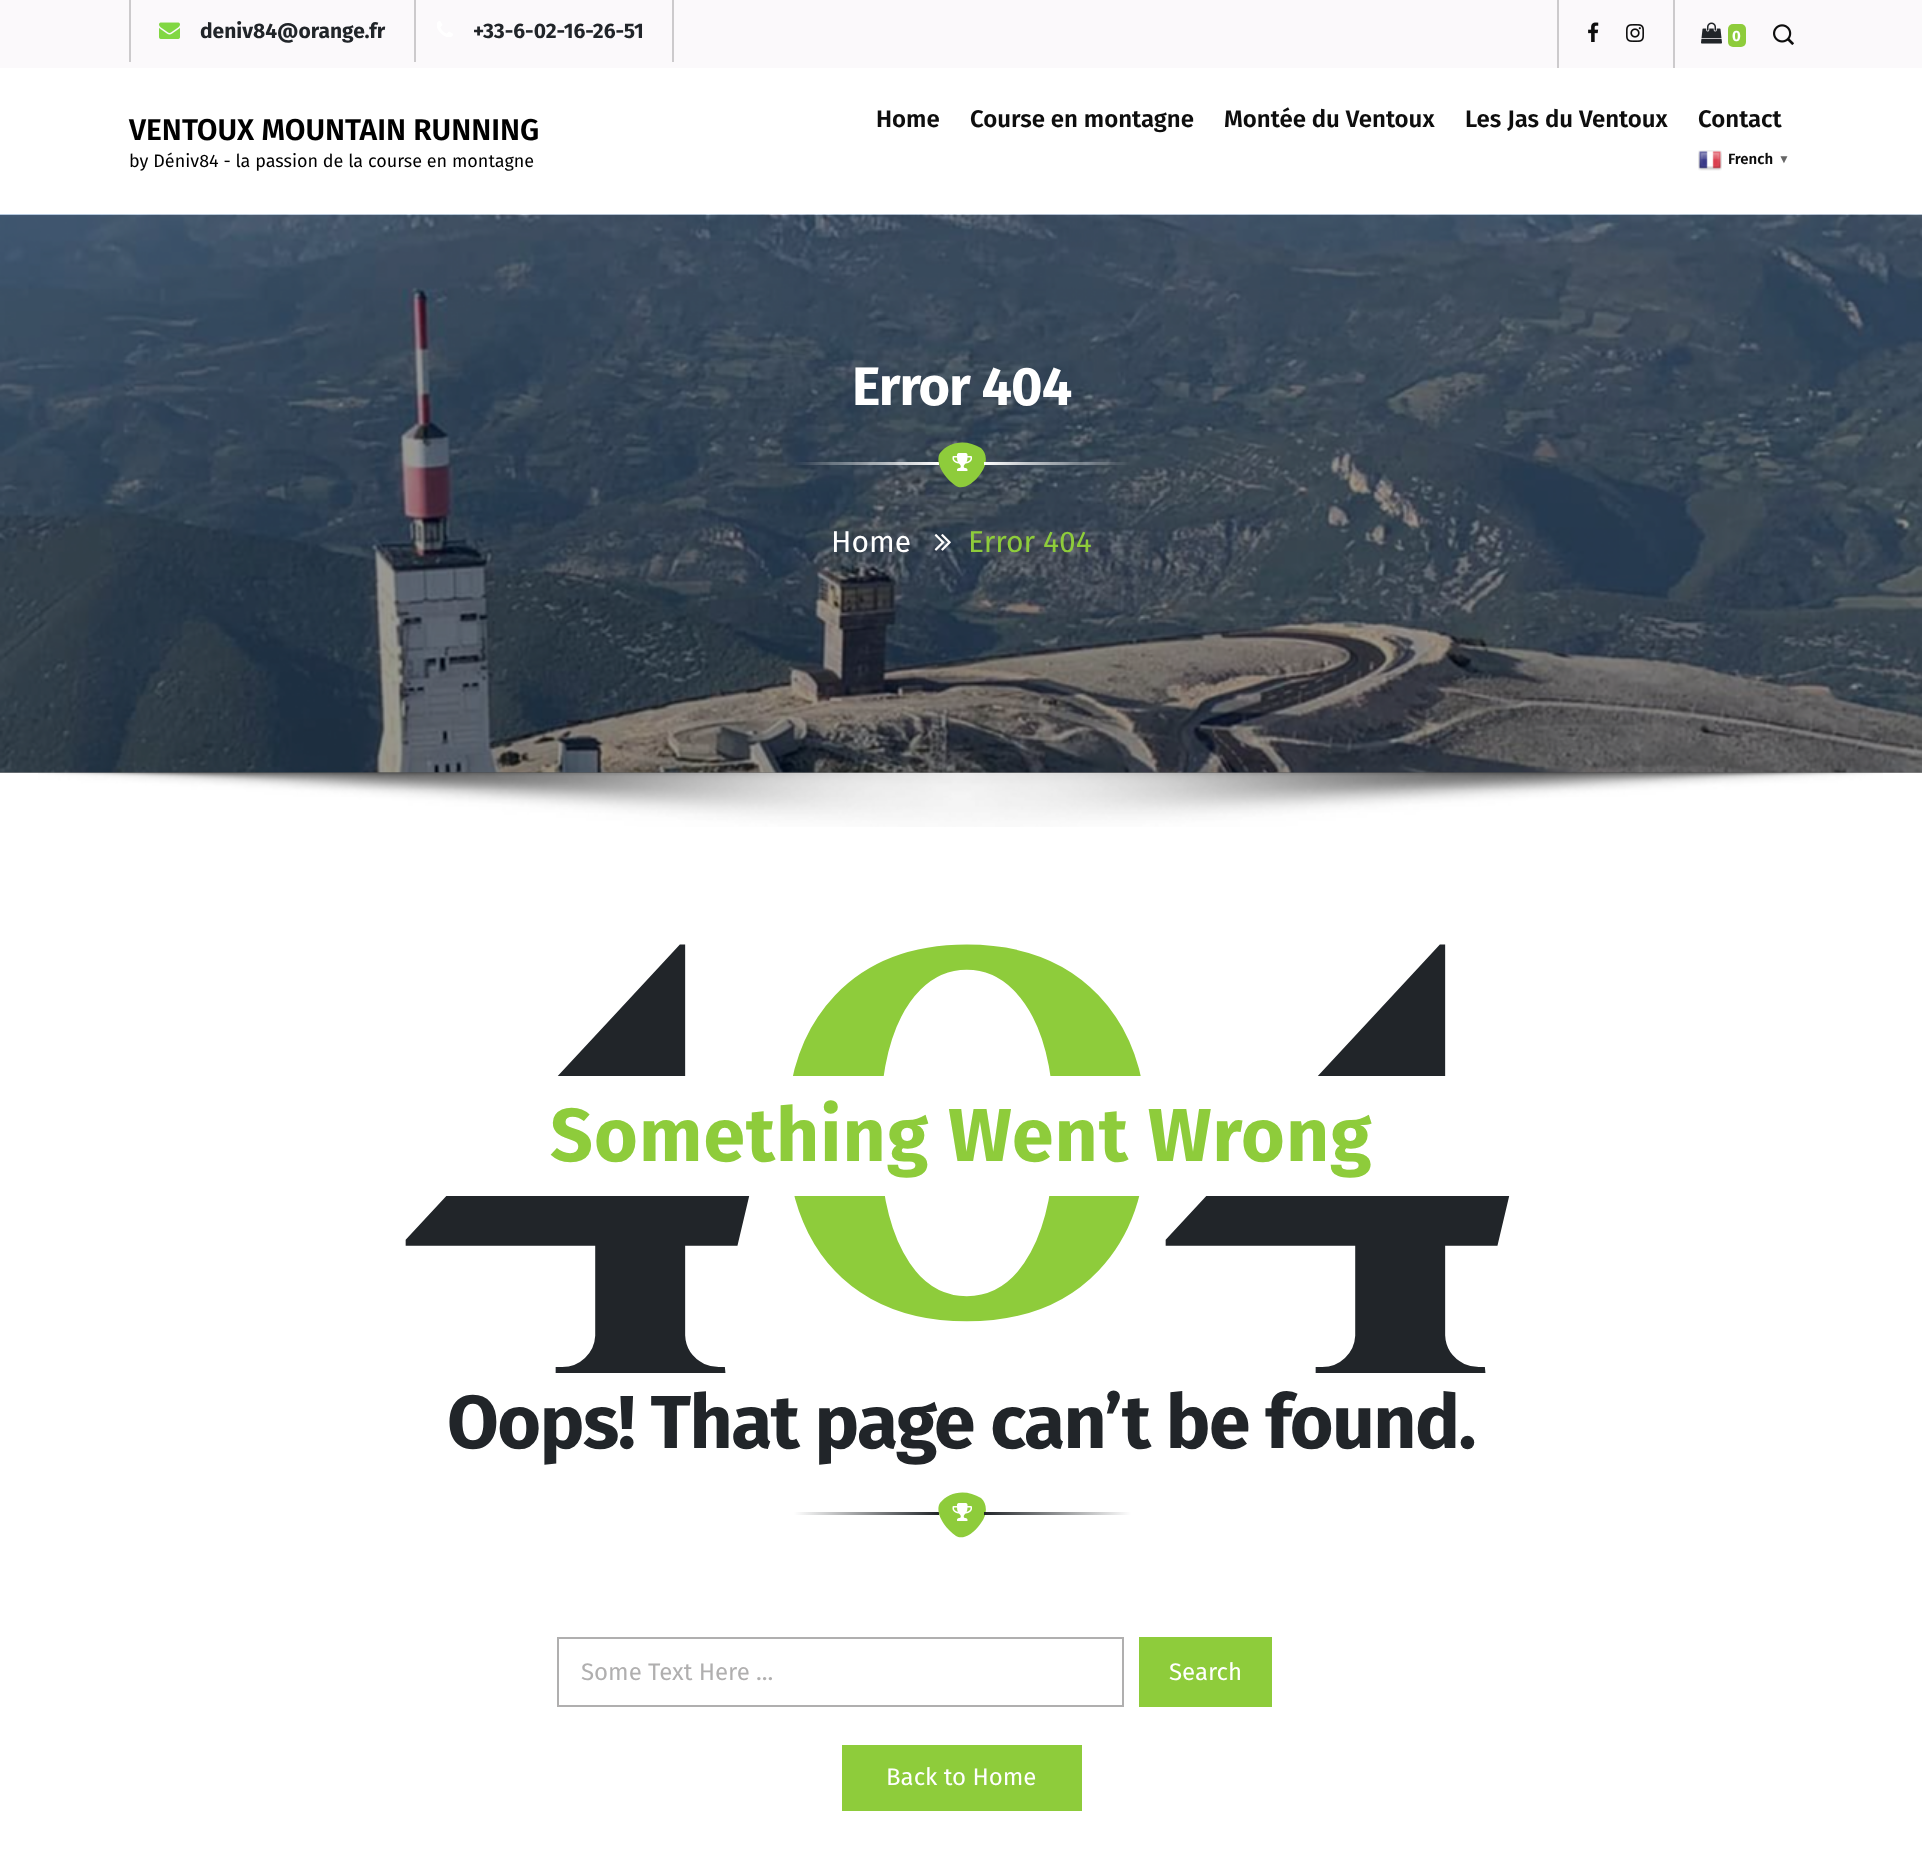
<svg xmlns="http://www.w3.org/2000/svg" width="1922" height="1858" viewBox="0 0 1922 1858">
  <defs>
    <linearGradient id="g1" gradientUnits="userSpaceOnUse" x1="984" y1="464" x2="1131" y2="464"><stop offset="0" stop-color="rgb(255,255,255)"/><stop offset="1" stop-color="rgb(255,255,255)" stop-opacity="0"/></linearGradient>
    <linearGradient id="g2" gradientUnits="userSpaceOnUse" x1="794" y1="1514" x2="939" y2="1514"><stop offset="0" stop-color="rgb(255,255,255)"/><stop offset="1" stop-color="rgb(33,37,41)"/></linearGradient>
    <linearGradient id="g3" gradientUnits="userSpaceOnUse" x1="984" y1="1514" x2="1131" y2="1514"><stop offset="0" stop-color="rgb(33,37,41)"/><stop offset="1" stop-color="rgb(33,37,41)" stop-opacity="0"/></linearGradient>
  </defs>
  <rect width="100%" height="100%" fill="rgb(255,255,255)"/>
  <rect x="0" y="772" width="1922" height="1" fill="rgb(153,153,153)"/>
  <rect x="0" y="0" width="1922" height="68" fill="rgb(251,249,251)"/>
  <rect x="129" y="0" width="2" height="62" fill="rgb(204,202,204)"/>
  <image x="159" y="22" width="21" height="17" href="pic1.png"/>
  <text x="200" y="38" font-family="Fira Sans" font-size="21" font-weight="bold" fill="rgb(33,37,41)">deniv84@orange.fr</text>
  <rect x="414" y="0" width="2" height="62" fill="rgb(204,202,204)"/>
  <image x="437" y="21" width="16" height="16" href="pic2.png"/>
  <text x="473" y="38" font-family="Fira Sans" font-size="21" font-weight="bold" fill="rgb(33,37,41)">+33-6-02-16-26-51</text>
  <rect x="672" y="0" width="2" height="62" fill="rgb(204,202,204)"/>
  <rect x="1557" y="0" width="2" height="68" fill="rgb(204,202,204)"/>
  <image x="1588" y="22" width="11" height="20" href="pic3.png"/>
  <image x="1626" y="24" width="18" height="18" href="pic4.png"/>
  <rect x="1673" y="0" width="2" height="68" fill="rgb(204,202,204)"/>
  <image x="1701" y="22" width="21" height="22" href="pic5.png"/>
  <rect x="1728" y="24" width="18" height="23" rx="5" fill="rgb(142,204,59)"/>
  <text x="1732" y="41" font-family="Fira Sans" font-size="15" font-weight="bold" fill="rgb(255,255,255)">0</text>
  <image x="1773" y="24" width="21" height="21" href="pic6.png"/>
  <text x="129" y="140" font-family="Fira Sans" font-size="30" font-weight="600" fill="rgb(0,0,0)">VENTOUX MOUNTAIN RUNNING</text>
  <text x="129" y="167" font-family="Fira Sans" font-size="18" fill="rgb(0,0,0)">by Déniv84 - la passion de la course en montagne</text>
  <g font-family="Fira Sans" font-size="24" font-weight="600" fill="rgb(14,14,14)">
    <text x="876" y="127">Home</text>
    <text x="970" y="127">Course en montagne</text>
    <text x="1224" y="127">Montée du Ventoux</text>
    <text x="1465" y="127">Les Jas du Ventoux</text>
    <text x="1698" y="127">Contact</text>
  </g>
  <image x="1698" y="150" width="24" height="21" href="pic7.png"/>
  <text x="1728" y="164" font-family="Fira Sans" font-size="15" font-weight="600" fill="rgb(14,14,14)">French</text>
  <text x="1778" y="163" font-family="Liberation Serif" font-size="12" font-weight="bold" fill="rgb(102,102,102)">▼</text>
  <image x="0" y="214" width="1922" height="559" href="pic8.png"/>
  <text x="852" y="405" font-family="Fira Sans" font-size="54" font-weight="bold" letter-spacing="-1" fill="rgb(255,255,255)">Error 404</text>
  <path d="M940 453C949 441 967 439 981 448C987 453 988 464 981 473C973 485 962 490 956 486C942 476 935 461 940 453Z" fill="rgb(142,204,59)"/>
  <image x="952" y="453" width="20" height="18" href="pic9.png"/>
  <rect x="984" y="462" width="147" height="3" fill="url(#g1)"/>
  <text x="831" y="552" font-family="Fira Sans" font-size="30" fill="rgb(255,255,255)">Home</text>
  <image x="934" y="534" width="17" height="17" href="pic10.png"/>
  <text x="968" y="552" font-family="Fira Sans" font-size="30" fill="rgb(142,204,59)">Error 404</text>
  <image x="38" y="772" width="1845" height="55" href="pic11.png"/>
  <text x="402" y="1313" font-family="Cinzel Decorative" font-size="600" font-weight="bold" letter-spacing="-12" fill="rgb(33,37,41)">4</text>
  <text x="761" y="1313" font-family="Cinzel Decorative" font-size="600" font-weight="bold" letter-spacing="-12" fill="rgb(142,204,59)">0</text>
  <text x="1162" y="1313" font-family="Cinzel Decorative" font-size="600" font-weight="bold" letter-spacing="-12" fill="rgb(33,37,41)">4</text>
  <rect x="446" y="1076" width="1069" height="120" fill="rgb(255,255,255)"/>
  <text x="550" y="1161" font-family="Fira Sans" font-size="75" font-weight="bold" letter-spacing="1.1" fill="rgb(142,204,59)">Something Went Wrong</text>
  <text x="447" y="1448" font-family="Fira Sans" font-size="75" font-weight="bold" letter-spacing="-1.5" fill="rgb(33,37,41)">Oops! That page can’t be found.</text>
  <rect x="794" y="1512" width="145" height="3" fill="url(#g2)"/>
  <path d="M940 1503C949 1491 967 1489 981 1498C987 1503 988 1514 981 1523C973 1535 962 1540 956 1536C942 1526 935 1511 940 1503Z" fill="rgb(142,204,59)"/>
  <image x="952" y="1503" width="20" height="18" href="pic9.png"/>
  <rect x="984" y="1512" width="147" height="3" fill="url(#g3)"/>
  <rect x="558" y="1638" width="565" height="68" fill="none" stroke="rgb(176,175,175)" stroke-width="2"/>
  <text x="581" y="1680" font-family="Fira Sans" font-size="24" fill="rgb(176,175,175)">Some Text Here ...</text>
  <rect x="1139" y="1637" width="133" height="70" fill="rgb(142,204,59)"/>
  <text x="1169" y="1680" font-family="Fira Sans" font-size="24" fill="rgb(255,255,255)">Search</text>
  <rect x="842" y="1745" width="240" height="66" fill="rgb(142,204,59)"/>
  <text x="886" y="1785" font-family="Fira Sans" font-size="24" fill="rgb(255,255,255)">Back to Home</text>
</svg>
